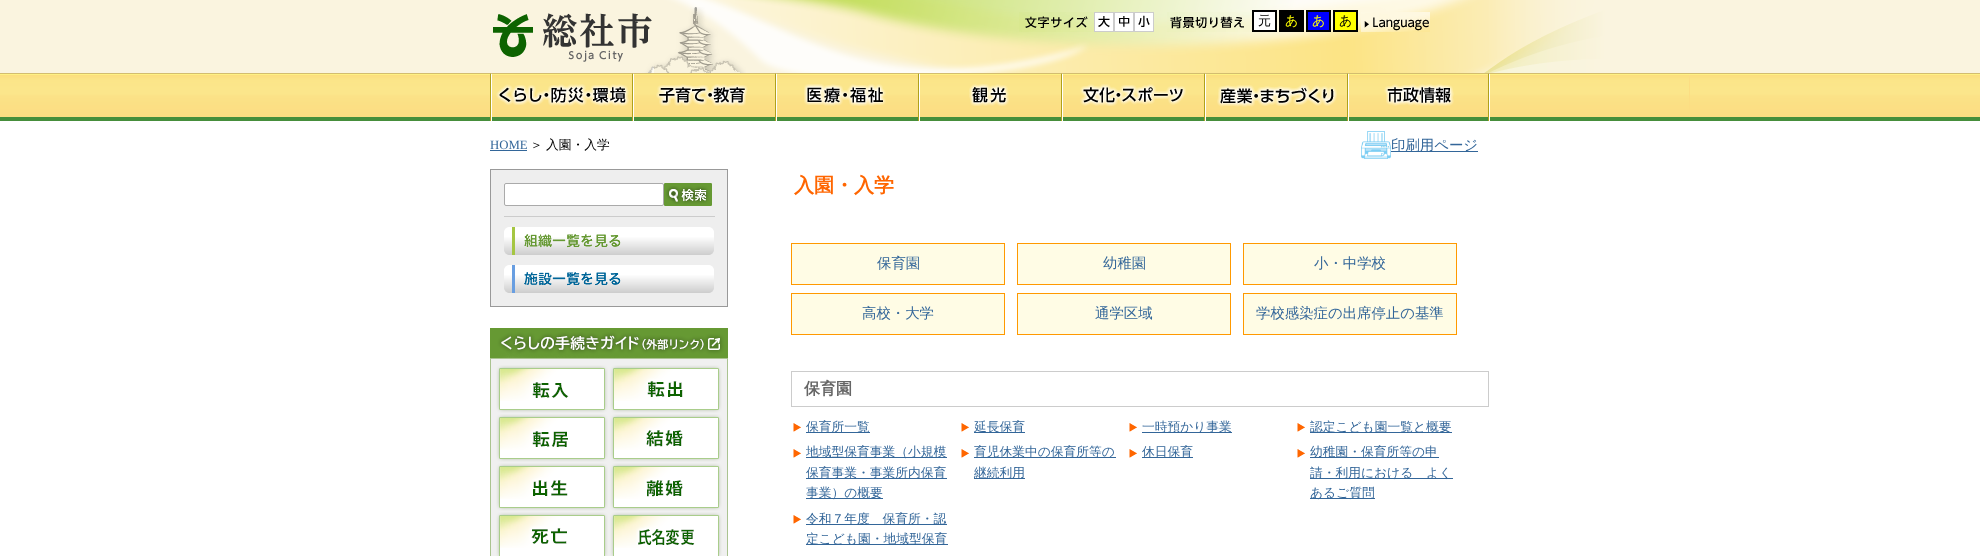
<svg xmlns="http://www.w3.org/2000/svg" width="1980" height="556" viewBox="0 0 1980 556">
  <rect width="100%" height="100%" fill="rgb(255,255,255)"/>
  <image x="0" y="0" width="1980" height="121" href="pic1.png"/>
  <image x="493" y="13" width="161" height="60" href="pic2.png"/>
  <image x="1019" y="12" width="75" height="20" href="pic3.png"/>
  <image x="1094" y="12" width="20" height="20" href="pic4.png"/>
  <image x="1114" y="12" width="20" height="20" href="pic5.png"/>
  <image x="1134" y="12" width="20" height="20" href="pic6.png"/>
  <image x="1167" y="12" width="83" height="20" href="pic7.png"/>
  <rect x="1253" y="11" width="23" height="20" fill="rgb(255,255,255)" stroke="rgb(0,0,0)" stroke-width="2"/>
  <text x="1258" y="25" font-family="WenQuanYi Zen Hei" font-size="13" font-weight="500" fill="rgb(0,0,0)">元</text>
  <rect x="1279" y="10" width="25" height="22" fill="rgb(0,0,0)"/>
  <text x="1285" y="25" font-family="WenQuanYi Zen Hei" font-size="13" font-weight="500" fill="rgb(255,255,0)">あ</text>
  <rect x="1307" y="11" width="23" height="20" fill="rgb(0,0,255)" stroke="rgb(0,0,0)" stroke-width="2"/>
  <text x="1312" y="25" font-family="WenQuanYi Zen Hei" font-size="13" font-weight="500" fill="rgb(255,255,0)">あ</text>
  <rect x="1334" y="11" width="23" height="20" fill="rgb(255,255,0)" stroke="rgb(0,0,0)" stroke-width="2"/>
  <text x="1339" y="25" font-family="WenQuanYi Zen Hei" font-size="13" font-weight="500" fill="rgb(0,0,0)">あ</text>
  <image x="1361" y="12" width="69" height="20" href="pic8.png"/>
  <image x="494" y="84" width="136" height="22" href="pic9.png"/>
  <image x="656" y="84" width="92" height="22" href="pic10.png"/>
  <image x="804" y="84" width="82" height="22" href="pic11.png"/>
  <image x="969" y="84" width="40" height="22" href="pic12.png"/>
  <image x="1080" y="84" width="106" height="22" href="pic13.png"/>
  <image x="1217" y="84" width="120" height="23" href="pic14.png"/>
  <image x="1384" y="84" width="70" height="22" href="pic15.png"/>
  <text x="490" y="149" font-family="Liberation Serif" font-size="12.75" fill="rgb(51,102,153)">HOME</text>
  <rect x="490" y="150" width="37" height="1" fill="rgb(51,102,153)"/>
  <g font-family="WenQuanYi Zen Hei" font-size="12.75" font-weight="500" fill="rgb(0,0,0)">
    <text x="530" y="149">＞</text>
    <text x="546" y="149">入園・入学</text>
  </g>
  <image x="1361" y="131" width="30" height="28" href="pic16.png"/>
  <rect x="1391" y="151" width="87" height="1" fill="rgb(51,102,153)"/>
  <text x="1391" y="150" font-family="WenQuanYi Zen Hei" font-size="14.4" font-weight="500" fill="rgb(51,102,153)">印刷用ページ</text>
  <rect x="491" y="170" width="236" height="136" fill="rgb(238,238,238)"/>
  <rect x="490" y="169" width="238" height="1" fill="rgb(153,153,153)"/>
  <rect x="727" y="169" width="1" height="138" fill="rgb(153,153,153)"/>
  <rect x="490" y="306" width="238" height="1" fill="rgb(153,153,153)"/>
  <rect x="490" y="169" width="1" height="138" fill="rgb(153,153,153)"/>
  <rect x="504" y="216" width="211" height="1" fill="rgb(204,204,204)"/>
  <rect x="504.5" y="183.5" width="159" height="22" rx="1.5" fill="rgb(255,255,255)" stroke="rgb(170,170,170)"/>
  <image x="664" y="183" width="48" height="23" href="pic17.png"/>
  <image x="504" y="227" width="210" height="28" href="pic18.png"/>
  <image x="504" y="265" width="210" height="28" href="pic19.png"/>
  <image x="490" y="328" width="238" height="228" href="pic20.png"/>
  <text x="794" y="192" font-family="WenQuanYi Zen Hei" font-size="20" font-weight="bold" fill="rgb(255,102,0)">入園・入学</text>
  <rect x="791.5" y="243.5" width="213" height="41" fill="rgb(255,252,229)" stroke="rgb(255,153,0)"/>
  <text x="877" y="268" font-family="WenQuanYi Zen Hei" font-size="14.4" font-weight="500" fill="rgb(51,102,153)">保育園</text>
  <rect x="1017.5" y="243.5" width="213" height="41" fill="rgb(255,252,229)" stroke="rgb(255,153,0)"/>
  <text x="1103" y="268" font-family="WenQuanYi Zen Hei" font-size="14.4" font-weight="500" fill="rgb(51,102,153)">幼稚園</text>
  <rect x="1243.5" y="243.5" width="213" height="41" fill="rgb(255,252,229)" stroke="rgb(255,153,0)"/>
  <text x="1314" y="268" font-family="WenQuanYi Zen Hei" font-size="14.4" font-weight="500" fill="rgb(51,102,153)">小・中学校</text>
  <rect x="791.5" y="293.5" width="213" height="41" fill="rgb(255,252,229)" stroke="rgb(255,153,0)"/>
  <text x="862" y="318" font-family="WenQuanYi Zen Hei" font-size="14.4" font-weight="500" fill="rgb(51,102,153)">高校・大学</text>
  <rect x="1017.5" y="293.5" width="213" height="41" fill="rgb(255,252,229)" stroke="rgb(255,153,0)"/>
  <text x="1095" y="318" font-family="WenQuanYi Zen Hei" font-size="14.4" font-weight="500" fill="rgb(51,102,153)">通学区域</text>
  <rect x="1243.5" y="293.5" width="213" height="41" fill="rgb(255,252,229)" stroke="rgb(255,153,0)"/>
  <text x="1256" y="318" font-family="WenQuanYi Zen Hei" font-size="14.4" font-weight="500" fill="rgb(51,102,153)">学校感染症の出席停止の基準</text>
  <rect x="791.5" y="371.5" width="697" height="35" fill="none" stroke="rgb(204,204,204)"/>
  <text x="804" y="394" font-family="WenQuanYi Zen Hei" font-size="16" font-weight="bold" fill="rgb(102,102,102)">保育園</text>
  <image x="793" y="423" width="8" height="9" href="pic21.png"/>
  <rect x="806" y="432" width="64" height="1" fill="rgb(51,102,153)"/>
  <text x="806" y="431" font-family="WenQuanYi Zen Hei" font-size="12.75" font-weight="500" fill="rgb(51,102,153)">保育所一覧</text>
  <image x="961" y="423" width="8" height="9" href="pic21.png"/>
  <rect x="974" y="432" width="51" height="1" fill="rgb(51,102,153)"/>
  <text x="974" y="431" font-family="WenQuanYi Zen Hei" font-size="12.75" font-weight="500" fill="rgb(51,102,153)">延長保育</text>
  <image x="1129" y="423" width="8" height="9" href="pic21.png"/>
  <rect x="1142" y="432" width="90" height="1" fill="rgb(51,102,153)"/>
  <text x="1142" y="431" font-family="WenQuanYi Zen Hei" font-size="12.75" font-weight="500" fill="rgb(51,102,153)">一時預かり事業</text>
  <image x="1297" y="423" width="8" height="9" href="pic21.png"/>
  <rect x="1310" y="432" width="142" height="1" fill="rgb(51,102,153)"/>
  <text x="1310" y="431" font-family="WenQuanYi Zen Hei" font-size="12.75" font-weight="500" fill="rgb(51,102,153)">認定こども園一覧と概要</text>
  <image x="793" y="449" width="8" height="9" href="pic21.png"/>
  <rect x="806" y="457" width="141" height="1" fill="rgb(51,102,153)"/>
  <text x="806" y="456" font-family="WenQuanYi Zen Hei" font-size="12.75" font-weight="500" fill="rgb(51,102,153)">地域型保育事業（小規模</text>
  <rect x="806" y="478" width="141" height="1" fill="rgb(51,102,153)"/>
  <text x="806" y="477" font-family="WenQuanYi Zen Hei" font-size="12.75" font-weight="500" fill="rgb(51,102,153)">保育事業・事業所内保育</text>
  <rect x="806" y="498" width="77" height="1" fill="rgb(51,102,153)"/>
  <text x="806" y="497" font-family="WenQuanYi Zen Hei" font-size="12.75" font-weight="500" fill="rgb(51,102,153)">事業）の概要</text>
  <image x="961" y="449" width="8" height="9" href="pic21.png"/>
  <rect x="974" y="457" width="142" height="1" fill="rgb(51,102,153)"/>
  <text x="974" y="456" font-family="WenQuanYi Zen Hei" font-size="12.75" font-weight="500" fill="rgb(51,102,153)">育児休業中の保育所等の</text>
  <rect x="974" y="478" width="51" height="1" fill="rgb(51,102,153)"/>
  <text x="974" y="477" font-family="WenQuanYi Zen Hei" font-size="12.75" font-weight="500" fill="rgb(51,102,153)">継続利用</text>
  <image x="1129" y="449" width="8" height="9" href="pic21.png"/>
  <rect x="1142" y="457" width="51" height="1" fill="rgb(51,102,153)"/>
  <text x="1142" y="456" font-family="WenQuanYi Zen Hei" font-size="12.75" font-weight="500" fill="rgb(51,102,153)">休日保育</text>
  <image x="1297" y="449" width="8" height="9" href="pic21.png"/>
  <rect x="1310" y="457" width="129" height="1" fill="rgb(51,102,153)"/>
  <text x="1310" y="456" font-family="WenQuanYi Zen Hei" font-size="12.75" font-weight="500" fill="rgb(51,102,153)">幼稚園・保育所等の申</text>
  <rect x="1310" y="478" width="143" height="1" fill="rgb(51,102,153)"/>
  <text x="1310" y="477" font-family="WenQuanYi Zen Hei" font-size="12.75" font-weight="500" fill="rgb(51,102,153)">請・利用における　よく</text>
  <rect x="1310" y="498" width="65" height="1" fill="rgb(51,102,153)"/>
  <text x="1310" y="497" font-family="WenQuanYi Zen Hei" font-size="12.75" font-weight="500" fill="rgb(51,102,153)">あるご質問</text>
  <image x="793" y="515" width="8" height="9" href="pic21.png"/>
  <rect x="806" y="524" width="141" height="1" fill="rgb(51,102,153)"/>
  <text x="806" y="523" font-family="WenQuanYi Zen Hei" font-size="12.75" font-weight="500" fill="rgb(51,102,153)">令和７年度　保育所・認</text>
  <rect x="806" y="544" width="142" height="1" fill="rgb(51,102,153)"/>
  <text x="806" y="543" font-family="WenQuanYi Zen Hei" font-size="12.75" font-weight="500" fill="rgb(51,102,153)">定こども園・地域型保育</text>
</svg>
